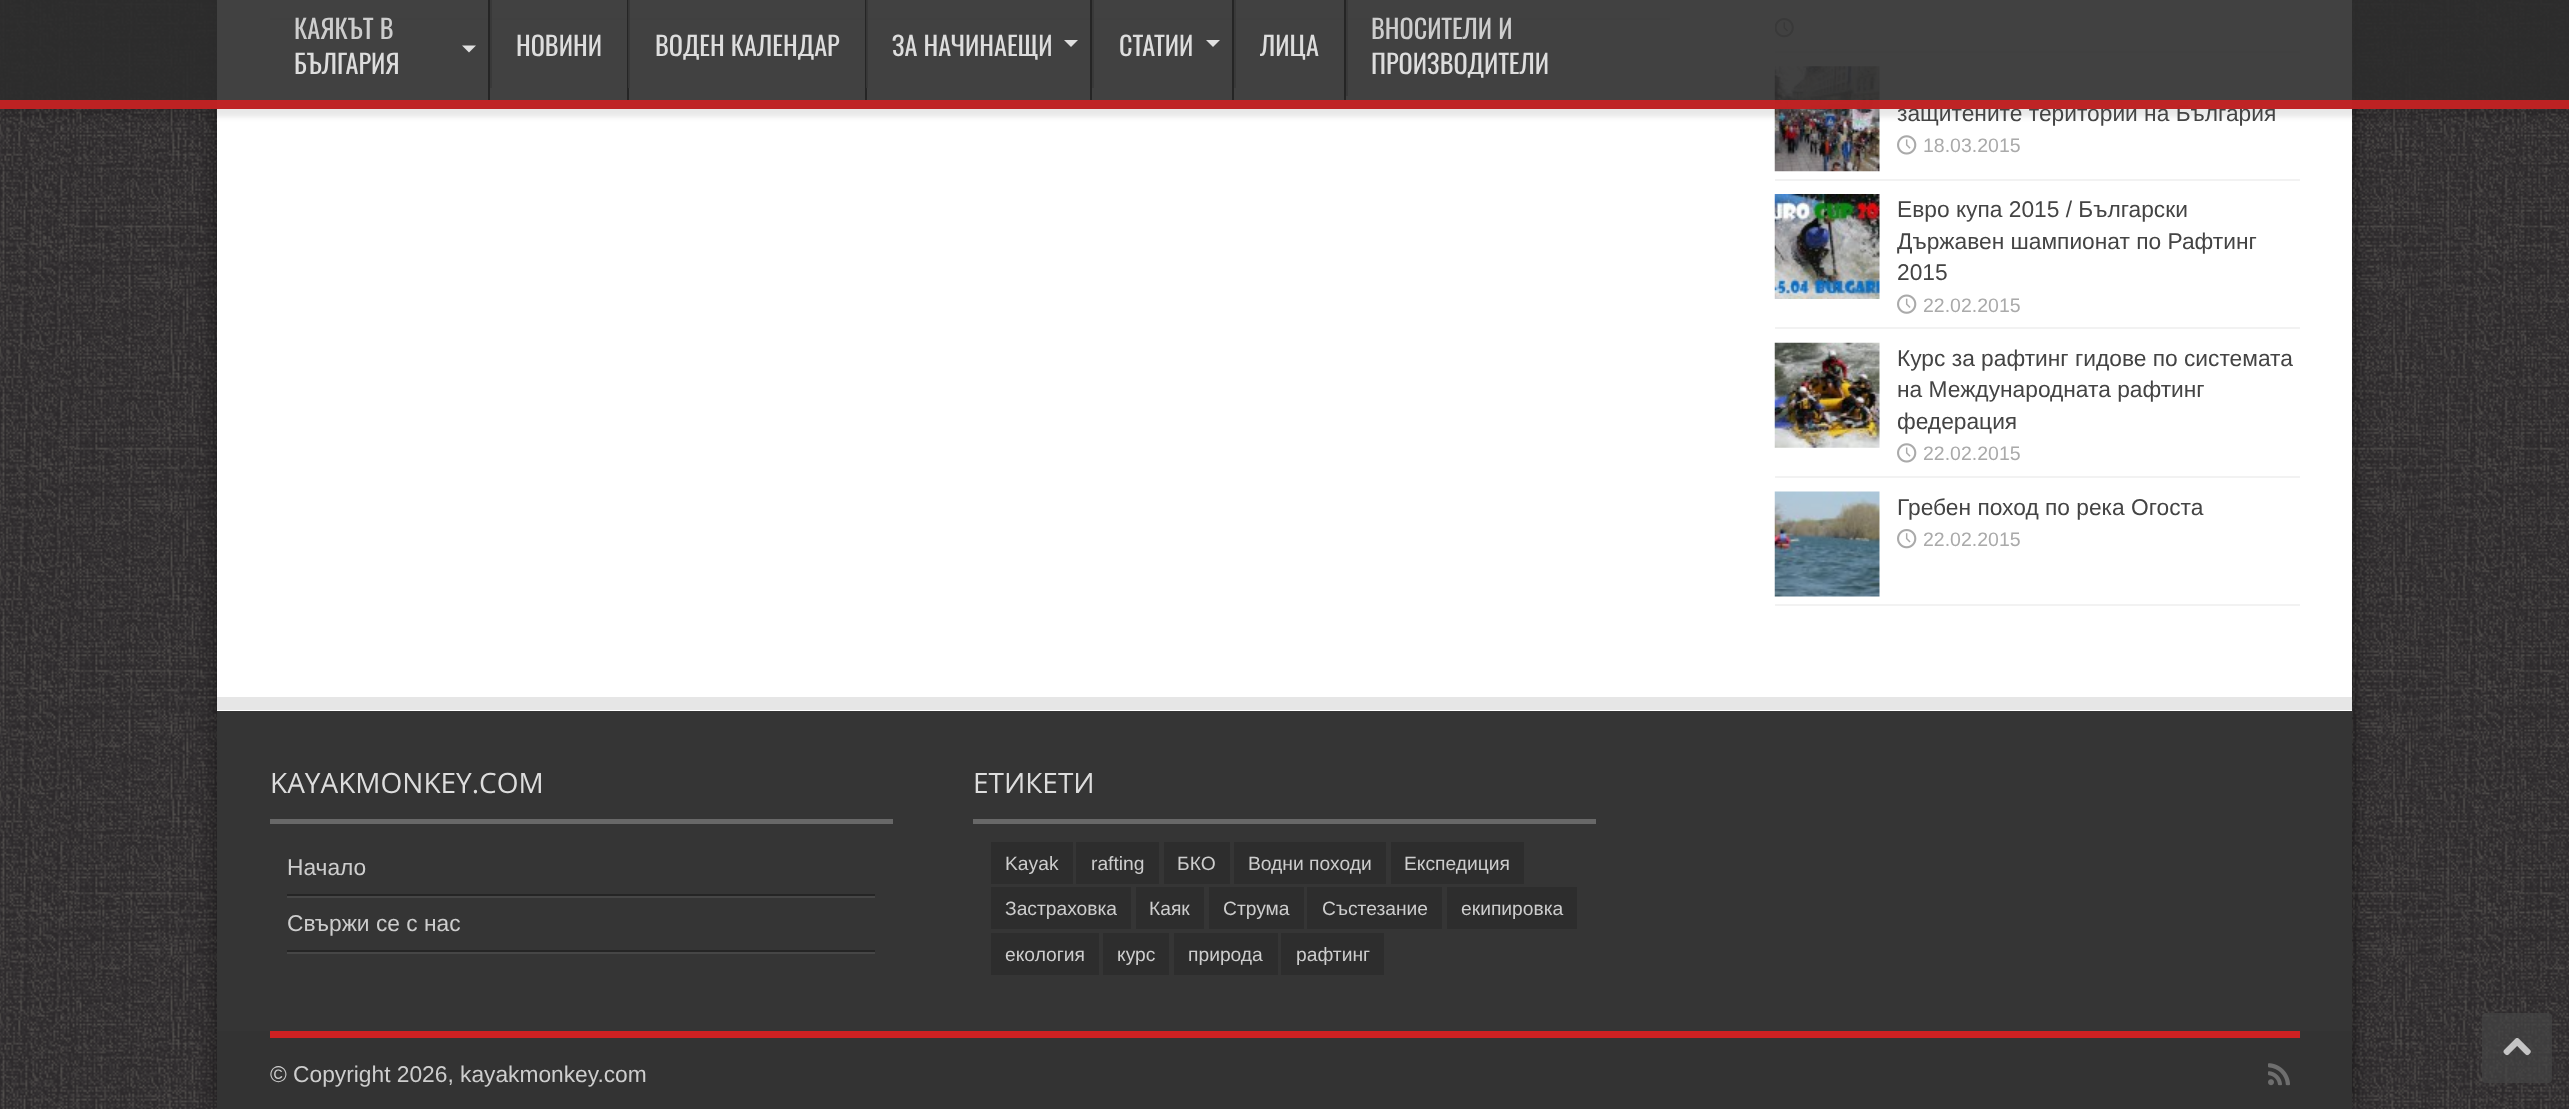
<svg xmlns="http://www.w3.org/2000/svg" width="2569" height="1109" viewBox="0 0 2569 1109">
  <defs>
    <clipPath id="clip1"><path d="M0 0H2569V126H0ZM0 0H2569V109H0Z" clip-rule="evenodd"/></clipPath>
  </defs>
  <rect width="100%" height="100%" fill="rgb(38,35,38)"/>
  <image x="0" y="0" width="2569" height="1109" href="pic1.png"/>
  <rect x="217" y="-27" width="2135" height="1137" fill="rgba(0,0,0,0.5)" filter="blur(9px)"/>
  <rect x="217" y="0" width="2135" height="711" fill="rgb(255,255,255)"/>
  <rect x="270" y="18" width="1400" height="2" fill="rgb(242,242,242)"/>
  <rect x="1775" y="51" width="525" height="2" fill="rgb(242,242,242)"/>
  <image x="1775" y="18" width="19" height="20" href="pic2.png"/>
  <image x="1774" y="66" width="106" height="106" href="pic3.png"/>
  <g clip-path="url(#clip1)">
    <rect x="0" y="9" width="2569" height="108" fill="rgba(0,0,0,0.09)" filter="blur(2.5px)"/>
  </g>
  <text x="1897" y="121" font-family="Liberation Sans" font-size="22.75" fill="rgb(68,68,68)">защитените територии на България</text>
  <rect x="0" y="0" width="2569" height="109" fill="rgba(44,44,44,0.9)"/>
  <rect x="0" y="100" width="2569" height="9" fill="rgba(205,33,34,0.9)"/>
  <text x="294" y="39" font-family="Oswald" font-size="26.25" fill="rgb(205,205,205)">КАЯКЪТ В</text>
  <path d="M462 45.5H476L469 52.5Z" fill="rgb(224,224,224)"/>
  <text x="294" y="74" font-family="Oswald" font-size="26.25" fill="rgb(221,221,221)">БЪЛГАРИЯ</text>
  <rect x="488" y="0" width="2" height="100" fill="rgb(37,37,37)"/>
  <rect x="490" y="0" width="2" height="88" fill="rgb(57,57,57)"/>
  <text x="516" y="56" font-family="Oswald" font-size="26.25" fill="rgb(221,221,221)">НОВИНИ</text>
  <rect x="627" y="0" width="2" height="100" fill="rgb(37,37,37)"/>
  <rect x="628" y="0" width="2" height="88" fill="rgba(56,56,56,0.9)"/>
  <text x="655" y="56" font-family="Oswald" font-size="26.25" fill="rgb(221,221,221)">ВОДЕН КАЛЕНДАР</text>
  <rect x="865" y="0" width="2" height="100" fill="rgb(37,37,37)"/>
  <rect x="866" y="0" width="2" height="88" fill="rgba(56,56,56,0.9)"/>
  <text x="892" y="56" font-family="Oswald" font-size="26.25" fill="rgb(221,221,221)">ЗА НАЧИНАЕЩИ</text>
  <path d="M1064 40H1078L1071 47Z" fill="rgb(224,224,224)"/>
  <rect x="1090" y="0" width="2" height="100" fill="rgb(37,37,37)"/>
  <rect x="1092" y="0" width="2" height="88" fill="rgb(57,57,57)"/>
  <text x="1119" y="56" font-family="Oswald" font-size="26.25" fill="rgb(221,221,221)">СТАТИИ</text>
  <path d="M1206 40H1220L1213 47Z" fill="rgb(224,224,224)"/>
  <rect x="1232" y="0" width="2" height="100" fill="rgb(37,37,37)"/>
  <rect x="1234" y="0" width="2" height="88" fill="rgb(57,57,57)"/>
  <text x="1260" y="56" font-family="Oswald" font-size="26.25" fill="rgb(221,221,221)">ЛИЦА</text>
  <rect x="1344" y="0" width="2" height="100" fill="rgb(37,37,37)"/>
  <rect x="1346" y="0" width="2" height="96" fill="rgb(57,57,57)"/>
  <text x="1371" y="39" font-family="Oswald" font-size="26.25" fill="rgb(205,205,205)">ВНОСИТЕЛИ И</text>
  <text x="1371" y="74" font-family="Oswald" font-size="26.25" fill="rgb(221,221,221)">ПРОИЗВОДИТЕЛИ</text>
  <rect x="1775" y="179" width="525" height="2" fill="rgb(242,242,242)"/>
  <image x="1897" y="135" width="20" height="20" href="pic4.png"/>
  <text x="1923" y="152" font-family="Liberation Sans" font-size="19.5" fill="rgb(170,170,170)">18.03.2015</text>
  <rect x="1775" y="327" width="525" height="2" fill="rgb(242,242,242)"/>
  <image x="1774" y="194" width="106" height="105" href="pic5.png"/>
  <g font-family="Liberation Sans" font-size="22.75" fill="rgb(68,68,68)">
    <text>
      <tspan x="1897" y="217">Евро купа 2015 / Български</tspan>
      <tspan x="1897" y="249">Държавен шампионат по Рафтинг</tspan>
      <tspan x="1897" y="280">2015</tspan>
    </text>
  </g>
  <image x="1897" y="294" width="20" height="20" href="pic6.png"/>
  <text x="1923" y="312" font-family="Liberation Sans" font-size="19.5" fill="rgb(170,170,170)">22.02.2015</text>
  <rect x="1775" y="476" width="525" height="2" fill="rgb(242,242,242)"/>
  <image x="1774" y="342" width="106" height="106" href="pic7.png"/>
  <g font-family="Liberation Sans" font-size="22.75" fill="rgb(68,68,68)">
    <text>
      <tspan x="1897" y="366">Курс за рафтинг гидове по системата</tspan>
      <tspan x="1897" y="397">на Международната рафтинг</tspan>
      <tspan x="1897" y="429">федерация</tspan>
    </text>
  </g>
  <image x="1897" y="443" width="20" height="20" href="pic4.png"/>
  <text x="1923" y="460" font-family="Liberation Sans" font-size="19.5" fill="rgb(170,170,170)">22.02.2015</text>
  <rect x="1775" y="604" width="525" height="2" fill="rgb(242,242,242)"/>
  <image x="1774" y="491" width="106" height="106" href="pic8.png"/>
  <text x="1897" y="515" font-family="Liberation Sans" font-size="22.75" fill="rgb(68,68,68)">Гребен поход по река Огоста</text>
  <image x="1897" y="529" width="20" height="20" href="pic9.png"/>
  <text x="1923" y="546" font-family="Liberation Sans" font-size="19.5" fill="rgb(170,170,170)">22.02.2015</text>
  <rect x="217" y="697" width="2135" height="13" fill="rgb(230,230,230)"/>
  <rect x="217" y="711" width="2135" height="320" fill="rgb(53,53,53)"/>
  <rect x="270" y="819" width="623" height="5" fill="rgb(104,104,104)"/>
  <text x="270" y="793" font-family="Open Sans" font-size="28" fill="rgb(221,221,221)">KAYAKMONKEY.COM</text>
  <rect x="287" y="952" width="588" height="2" fill="rgb(70,70,70)"/>
  <rect x="287" y="894" width="588" height="2" fill="rgb(37,37,37)"/>
  <text x="287" y="875" font-family="Liberation Sans" font-size="22.75" fill="rgb(205,205,205)">Начало</text>
  <rect x="287" y="896" width="588" height="2" fill="rgb(70,70,70)"/>
  <rect x="287" y="950" width="588" height="2" fill="rgb(37,37,37)"/>
  <text x="287" y="931" font-family="Liberation Sans" font-size="22.75" fill="rgb(205,205,205)">Свържи се с нас</text>
  <rect x="973" y="819" width="623" height="5" fill="rgb(104,104,104)"/>
  <text x="973" y="793" font-family="Open Sans" font-size="28" fill="rgb(221,221,221)">ЕТИКЕТИ</text>
  <rect x="991" y="842" width="82" height="42" fill="rgb(45,45,45)"/>
  <text x="1005" y="870" font-family="Liberation Sans" font-size="19.25" fill="rgb(205,205,205)">Kayak</text>
  <rect x="1076" y="842" width="83" height="42" fill="rgb(45,45,45)"/>
  <text x="1091" y="870" font-family="Liberation Sans" font-size="19.25" fill="rgb(205,205,205)">rafting</text>
  <rect x="1164" y="842" width="66" height="42" fill="rgb(45,45,45)"/>
  <text x="1177" y="870" font-family="Liberation Sans" font-size="19.25" fill="rgb(205,205,205)">БКО</text>
  <rect x="1234" y="842" width="152" height="42" fill="rgb(45,45,45)"/>
  <text x="1248" y="870" font-family="Liberation Sans" font-size="19.25" fill="rgb(205,205,205)">Водни походи</text>
  <rect x="1391" y="842" width="133" height="42" fill="rgb(45,45,45)"/>
  <text x="1404" y="870" font-family="Liberation Sans" font-size="19.25" fill="rgb(205,205,205)">Експедиция</text>
  <rect x="991" y="887" width="140" height="42" fill="rgb(45,45,45)"/>
  <text x="1005" y="915" font-family="Liberation Sans" font-size="19.25" fill="rgb(205,205,205)">Застраховка</text>
  <rect x="1136" y="887" width="68" height="42" fill="rgb(45,45,45)"/>
  <text x="1149" y="915" font-family="Liberation Sans" font-size="19.25" fill="rgb(205,205,205)">Каяк</text>
  <rect x="1209" y="887" width="95" height="42" fill="rgb(45,45,45)"/>
  <text x="1223" y="915" font-family="Liberation Sans" font-size="19.25" fill="rgb(205,205,205)">Струма</text>
  <rect x="1307" y="887" width="135" height="42" fill="rgb(45,45,45)"/>
  <text x="1322" y="915" font-family="Liberation Sans" font-size="19.25" fill="rgb(205,205,205)">Състезание</text>
  <rect x="1447" y="887" width="130" height="42" fill="rgb(45,45,45)"/>
  <text x="1461" y="915" font-family="Liberation Sans" font-size="19.25" fill="rgb(205,205,205)">екипировка</text>
  <rect x="991" y="933" width="108" height="42" fill="rgb(45,45,45)"/>
  <text x="1005" y="961" font-family="Liberation Sans" font-size="19.25" fill="rgb(205,205,205)">екология</text>
  <rect x="1103" y="933" width="66" height="42" fill="rgb(45,45,45)"/>
  <text x="1117" y="961" font-family="Liberation Sans" font-size="19.25" fill="rgb(205,205,205)">курс</text>
  <rect x="1174" y="933" width="104" height="42" fill="rgb(45,45,45)"/>
  <text x="1188" y="961" font-family="Liberation Sans" font-size="19.25" fill="rgb(205,205,205)">природа</text>
  <rect x="1281" y="933" width="103" height="42" fill="rgb(45,45,45)"/>
  <text x="1296" y="961" font-family="Liberation Sans" font-size="19.25" fill="rgb(205,205,205)">рафтинг</text>
  <rect x="217" y="1031" width="2135" height="78" fill="rgb(51,51,51)"/>
  <rect x="270" y="1031" width="2030" height="7" fill="rgb(205,33,34)"/>
  <text x="270" y="1082" font-family="Liberation Sans" font-size="22.75" fill="rgb(205,205,205)">© Copyright 2026, kayakmonkey.com</text>
  <image x="2268" y="1063" width="22" height="23" href="pic10.png"/>
  <rect x="2482" y="1013" width="70" height="70" rx="4" fill="rgba(68,68,68,0.7)"/>
  <image x="2503" y="1038" width="28" height="18" href="pic11.png"/>
</svg>
